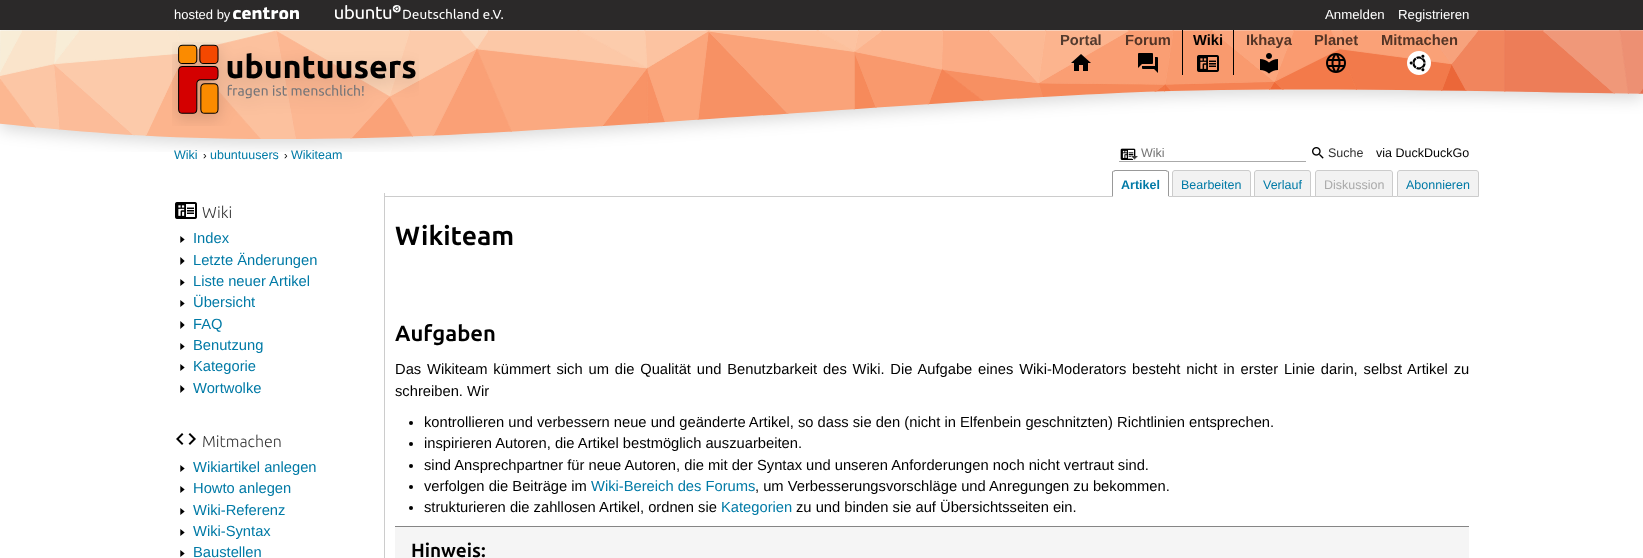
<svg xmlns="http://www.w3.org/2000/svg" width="1643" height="558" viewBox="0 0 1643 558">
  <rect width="100%" height="100%" fill="rgb(255,255,255)"/>
  <rect x="0" y="0" width="1643" height="30" fill="rgb(43,41,41)"/>
  <text x="174" y="19" font-family="Liberation Sans" font-size="13" fill="rgb(255,255,255)">hosted by</text>
  <image x="233" y="7" width="66" height="12" href="pic1.png"/>
  <image x="335" y="5" width="168" height="14" href="pic2.png"/>
  <g font-family="Liberation Sans" font-size="13.25" fill="rgb(255,255,255)">
    <text x="1325" y="19">Anmelden</text>
    <text x="1398" y="19">Registrieren</text>
  </g>
  <g font-family="Liberation Sans" font-size="12.5" fill="rgb(0,122,166)">
    <text x="174" y="159">Wiki</text>
    <text x="210" y="159">ubuntuusers</text>
    <text x="291" y="159">Wikiteam</text>
  </g>
  <image x="1120" y="148" width="16" height="12" href="pic12.png"/>
  <text x="1141" y="157" font-family="Liberation Sans" font-size="12.5" fill="rgb(117,117,117)">Wiki</text>
  <text x="1376" y="157" font-family="Liberation Sans" font-size="12.5" fill="rgb(0,0,0)">via DuckDuckGo</text>
  <image x="0" y="30" width="1643" height="122" href="pic3.png"/>
  <image x="172" y="42" width="247" height="84" href="pic4.png"/>
  <text x="1060" y="45" font-family="Liberation Sans" font-size="14.72" font-weight="bold" fill="rgb(83,59,47)">Portal</text>
  <image x="1071" y="54" width="20" height="17" href="pic5.png"/>
  <text x="1125" y="45" font-family="Liberation Sans" font-size="14.72" font-weight="bold" fill="rgb(83,52,38)">Forum</text>
  <image x="1138" y="53" width="20" height="20" href="pic6.png"/>
  <rect x="1233" y="30" width="1" height="45" fill="rgb(0,0,0)"/>
  <rect x="1182" y="30" width="1" height="45" fill="rgb(0,0,0)"/>
  <text x="1193" y="45" font-family="Liberation Sans" font-size="14.72" font-weight="bold" fill="rgb(0,0,0)">Wiki</text>
  <image x="1197" y="55" width="22" height="17" href="pic7.png"/>
  <text x="1246" y="45" font-family="Liberation Sans" font-size="14.72" font-weight="bold" fill="rgb(83,52,38)">Ikhaya</text>
  <image x="1260" y="53" width="18" height="21" href="pic8.png"/>
  <text x="1314" y="45" font-family="Liberation Sans" font-size="14.72" font-weight="bold" fill="rgb(83,52,38)">Planet</text>
  <image x="1326" y="53" width="20" height="20" href="pic9.png"/>
  <text x="1381" y="45" font-family="Liberation Sans" font-size="14.72" font-weight="bold" fill="rgb(83,52,38)">Mitmachen</text>
  <image x="1407" y="51" width="24" height="24" href="pic10.png"/>
  <g font-family="Liberation Sans" font-size="11" fill="rgb(0,0,0)">
    <text x="203" y="159">›</text>
    <text x="284" y="159">›</text>
  </g>
  <image x="1131" y="156" width="7" height="4" href="pic11.png"/>
  <rect x="1119" y="161" width="187" height="1" fill="rgb(170,170,170)"/>
  <image x="1312" y="147" width="12" height="12" href="pic13.png"/>
  <text x="1328" y="157" font-family="Liberation Sans" font-size="12.5" fill="rgb(51,51,51)">Suche</text>
  <rect x="385" y="196" width="1012" height="1" fill="rgb(204,204,204)"/>
  <path d="M1115 170H1166C1167.5 170 1169 171.5 1169 173V197H1112V173C1112 171.5 1113.5 170 1115 170Z" fill="rgb(255,255,255)"/>
  <path d="M1115 170L1113 171L1114 172L1115 171H1166L1167 172L1168 171L1166 170Z" fill="rgb(153,153,153)"/>
  <path d="M1169 197V173C1169 172 1169 171 1168 171L1167.5 171.5C1168 172 1168 172.5 1168 173V196Z" fill="rgb(153,153,153)"/>
  <path d="M1169 197L1168 196H1113L1112 197Z" fill="rgb(255,255,255)"/>
  <path d="M1112 197L1113 196V173C1113 172.5 1113 172 1113.5 171.5L1113 171C1112 171 1112 172 1112 173Z" fill="rgb(153,153,153)"/>
  <text x="1121" y="189" font-family="Liberation Sans" font-size="12.5" font-weight="bold" fill="rgb(0,122,166)">Artikel</text>
  <path d="M1175 170.5H1248C1249.5 170.5 1250.5 171.5 1250.5 173V196.5H1172.5V173C1172.5 171.5 1173.5 170.5 1175 170.5Z" fill="rgb(242,242,242)" stroke="rgb(204,204,204)"/>
  <text x="1181" y="189" font-family="Liberation Sans" font-size="12.5" fill="rgb(0,122,166)">Bearbeiten</text>
  <path d="M1257 170.5H1308C1309.5 170.5 1310.5 171.5 1310.5 173V196.5H1254.5V173C1254.5 171.5 1255.5 170.5 1257 170.5Z" fill="rgb(242,242,242)" stroke="rgb(204,204,204)"/>
  <text x="1263" y="189" font-family="Liberation Sans" font-size="12.5" fill="rgb(0,122,166)">Verlauf</text>
  <path d="M1318 170.5H1390C1391.5 170.5 1392.5 171.5 1392.5 173V196.5H1315.5V173C1315.5 171.5 1316.5 170.5 1318 170.5Z" fill="rgb(242,242,242)" stroke="rgb(204,204,204)"/>
  <text x="1324" y="189" font-family="Liberation Sans" font-size="12.5" fill="rgb(170,170,170)">Diskussion</text>
  <path d="M1400 170.5H1476C1477.5 170.5 1478.5 171.5 1478.5 173V196.5H1397.5V173C1397.5 171.5 1398.5 170.5 1400 170.5Z" fill="rgb(242,242,242)" stroke="rgb(204,204,204)"/>
  <text x="1406" y="189" font-family="Liberation Sans" font-size="12.5" fill="rgb(0,122,166)">Abonnieren</text>
  <rect x="384" y="193" width="1" height="365" fill="rgb(204,204,204)"/>
  <image x="175" y="202" width="22" height="17" href="pic14.png"/>
  <text x="202" y="218" font-family="Ubuntu" font-size="16" font-weight="300" fill="rgb(51,51,51)">Wiki</text>
  <image x="180" y="236" width="5" height="7" href="pic15.png"/>
  <text x="193" y="243" font-family="Liberation Sans" font-size="14.72" fill="rgb(0,122,166)">Index</text>
  <image x="180" y="257" width="5" height="8" href="pic16.png"/>
  <text x="193" y="265" font-family="Liberation Sans" font-size="14.72" fill="rgb(0,122,166)">Letzte Änderungen</text>
  <image x="180" y="279" width="5" height="7" href="pic15.png"/>
  <text x="193" y="286" font-family="Liberation Sans" font-size="14.72" fill="rgb(0,122,166)">Liste neuer Artikel</text>
  <image x="180" y="300" width="5" height="7" href="pic15.png"/>
  <text x="193" y="307" font-family="Liberation Sans" font-size="14.72" fill="rgb(0,122,166)">Übersicht</text>
  <image x="180" y="321" width="5" height="8" href="pic16.png"/>
  <text x="193" y="329" font-family="Liberation Sans" font-size="14.72" fill="rgb(0,122,166)">FAQ</text>
  <image x="180" y="343" width="5" height="7" href="pic15.png"/>
  <text x="193" y="350" font-family="Liberation Sans" font-size="14.72" fill="rgb(0,122,166)">Benutzung</text>
  <image x="180" y="364" width="5" height="7" href="pic15.png"/>
  <text x="193" y="371" font-family="Liberation Sans" font-size="14.72" fill="rgb(0,122,166)">Kategorie</text>
  <image x="180" y="385" width="5" height="8" href="pic16.png"/>
  <text x="193" y="393" font-family="Liberation Sans" font-size="14.72" fill="rgb(0,122,166)">Wortwolke</text>
  <image x="176" y="433" width="20" height="12" href="pic17.png"/>
  <text x="202" y="447" font-family="Ubuntu" font-size="16" font-weight="300" fill="rgb(51,51,51)">Mitmachen</text>
  <image x="180" y="465" width="5" height="7" href="pic15.png"/>
  <text x="193" y="472" font-family="Liberation Sans" font-size="14.72" fill="rgb(0,122,166)">Wikiartikel anlegen</text>
  <image x="180" y="486" width="5" height="7" href="pic15.png"/>
  <text x="193" y="493" font-family="Liberation Sans" font-size="14.72" fill="rgb(0,122,166)">Howto anlegen</text>
  <image x="180" y="508" width="5" height="7" href="pic15.png"/>
  <text x="193" y="515" font-family="Liberation Sans" font-size="14.72" fill="rgb(0,122,166)">Wiki-Referenz</text>
  <image x="180" y="529" width="5" height="7" href="pic15.png"/>
  <text x="193" y="536" font-family="Liberation Sans" font-size="14.72" fill="rgb(0,122,166)">Wiki-Syntax</text>
  <image x="180" y="550" width="5" height="7" href="pic15.png"/>
  <text x="193" y="557" font-family="Liberation Sans" font-size="14.72" fill="rgb(0,122,166)">Baustellen</text>
  <text x="395" y="245" font-family="Ubuntu" font-size="26.5" font-weight="bold" fill="rgb(0,0,0)">Wikiteam</text>
  <text x="395" y="341" font-family="Ubuntu" font-size="22" font-weight="bold" fill="rgb(0,0,0)">Aufgaben</text>
  <g font-family="Liberation Sans" font-size="14.72" fill="rgb(0,0,0)">
    <text>
      <tspan x="395" y="374" word-spacing="1.75">Das Wikiteam kümmert sich um die Qualität und Benutzbarkeit des Wiki. Die Aufgabe eines Wiki-Moderators besteht nicht in erster Linie darin, selbst Artikel zu</tspan>
      <tspan x="395" y="396">schreiben. Wir</tspan>
    </text>
  </g>
  <circle cx="411" cy="423" r="2" fill="rgb(0,0,0)"/>
  <text x="424" y="427" font-family="Liberation Sans" font-size="14.72" fill="rgb(0,0,0)">kontrollieren und verbessern neue und geänderte Artikel, so dass sie den (nicht in Elfenbein geschnitzten) Richtlinien entsprechen.</text>
  <circle cx="411" cy="444" r="2" fill="rgb(0,0,0)"/>
  <text x="424" y="448" font-family="Liberation Sans" font-size="14.72" fill="rgb(0,0,0)">inspirieren Autoren, die Artikel bestmöglich auszuarbeiten.</text>
  <circle cx="411" cy="466" r="2" fill="rgb(0,0,0)"/>
  <text x="424" y="470" font-family="Liberation Sans" font-size="14.72" fill="rgb(0,0,0)">sind Ansprechpartner für neue Autoren, die mit der Syntax und unseren Anforderungen noch nicht vertraut sind.</text>
  <circle cx="411" cy="487" r="2" fill="rgb(0,0,0)"/>
  <text x="424" y="491" font-family="Liberation Sans" font-size="14.72" fill="rgb(0,0,0)">verfolgen die Beiträge im</text>
  <text x="591" y="491" font-family="Liberation Sans" font-size="14.72" fill="rgb(0,122,166)">Wiki-Bereich des Forums</text>
  <text x="755" y="491" font-family="Liberation Sans" font-size="14.72" fill="rgb(0,0,0)">, um Verbesserungsvorschläge und Anregungen zu bekommen.</text>
  <circle cx="411" cy="508" r="2" fill="rgb(0,0,0)"/>
  <text x="424" y="512" font-family="Liberation Sans" font-size="14.72" fill="rgb(0,0,0)">strukturieren die zahllosen Artikel, ordnen sie</text>
  <text x="721" y="512" font-family="Liberation Sans" font-size="14.72" fill="rgb(0,122,166)">Kategorien</text>
  <text x="796" y="512" font-family="Liberation Sans" font-size="14.72" fill="rgb(0,0,0)">zu und binden sie auf Übersichtsseiten ein.</text>
  <rect x="395" y="527" width="1074" height="31" fill="rgb(245,245,245)"/>
  <rect x="395" y="526" width="1074" height="1" fill="rgb(133,133,133)"/>
  <text x="411" y="557" font-family="Ubuntu" font-size="19" font-weight="bold" fill="rgb(0,0,0)">Hinweis:</text>
</svg>
